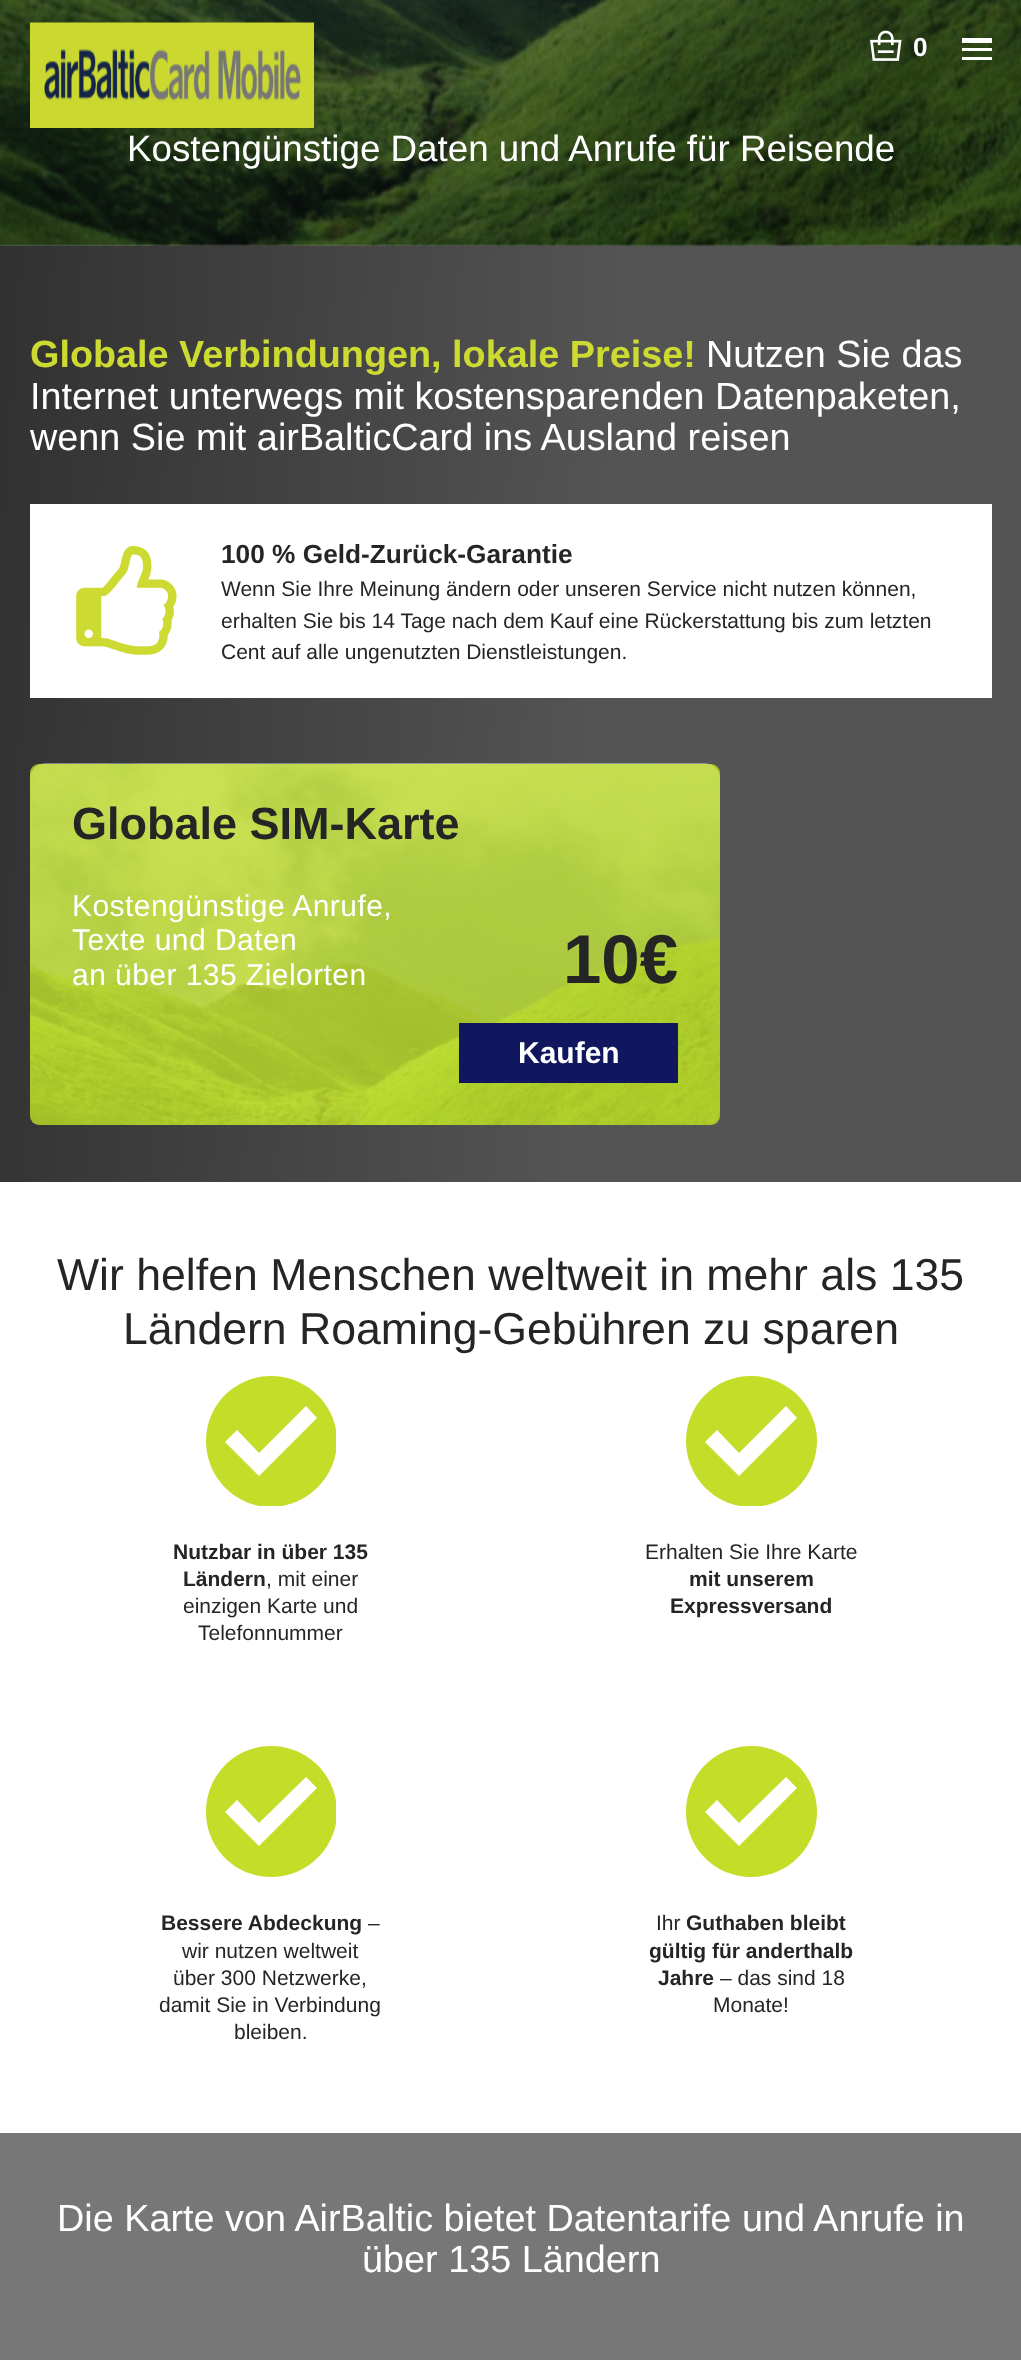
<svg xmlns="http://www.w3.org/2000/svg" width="1021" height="2365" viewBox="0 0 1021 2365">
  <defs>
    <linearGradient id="g1" gradientUnits="userSpaceOnUse" x1="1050" y1="750" x2="-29" y2="678"><stop offset="0.42" stop-color="rgb(84,84,84)"/><stop offset="1" stop-color="rgb(49,49,49)"/></linearGradient>
    <clipPath id="clip1"><rect x="206" y="1376" width="130" height="130"/></clipPath>
    <clipPath id="clip2"><rect x="686" y="1376" width="132" height="130"/></clipPath>
    <clipPath id="clip3"><rect x="206" y="1746" width="130" height="132"/></clipPath>
  </defs>
  <rect width="100%" height="100%" fill="rgb(255,255,255)"/>
  <rect x="0" y="244" width="1021" height="2" fill="rgb(128,128,128)"/>
  <image x="0" y="0" width="1021" height="246" href="pic3.png"/>
  <image x="30" y="22" width="284" height="106" href="pic1.png"/>
  <image x="870" y="30" width="32" height="31" href="pic2.png"/>
  <text x="913" y="56" font-family="Liberation Sans" font-size="26.25" font-weight="bold" fill="rgb(255,255,255)">0</text>
  <rect x="962" y="38" width="30" height="5" fill="rgb(255,255,255)"/>
  <rect x="962" y="48" width="30" height="3" fill="rgb(255,255,255)"/>
  <rect x="962" y="57" width="30" height="3" fill="rgb(255,255,255)"/>
  <text x="127" y="161" font-family="Liberation Sans" font-size="36.75" fill="rgb(255,255,255)">Kostengünstige Daten und Anrufe für Reisende</text>
  <rect x="0" y="246" width="1021" height="936" fill="url(#g1)"/>
  <text x="30" y="367" font-family="Liberation Sans" font-size="37.8" font-weight="bold" fill="rgb(205,218,50)">Globale Verbindungen, lokale Preise!</text>
  <g font-family="Liberation Sans" font-size="37.8" fill="rgb(255,255,255)">
    <text x="706" y="367">Nutzen Sie das</text>
    <text>
      <tspan x="30" y="409">Internet unterwegs mit kostensparenden Datenpaketen,</tspan>
      <tspan x="30" y="450">wenn Sie mit airBalticCard ins Ausland reisen</tspan>
    </text>
  </g>
  <rect x="30" y="504" width="962" height="194" fill="rgb(255,255,255)"/>
  <image x="76" y="546" width="101" height="109" href="pic4.png"/>
  <text x="221" y="563" font-family="Liberation Sans" font-size="26.25" font-weight="bold" fill="rgb(37,37,37)">100 % Geld-Zurück-Garantie</text>
  <g font-family="Liberation Sans" font-size="21" fill="rgb(37,37,37)">
    <text>
      <tspan x="221" y="596">Wenn Sie Ihre Meinung ändern oder unseren Service nicht nutzen können,</tspan>
      <tspan x="221" y="628">erhalten Sie bis 14 Tage nach dem Kauf eine Rückerstattung bis zum letzten</tspan>
      <tspan x="221" y="659">Cent auf alle ungenutzten Dienstleistungen.</tspan>
    </text>
  </g>
  <image x="29" y="763" width="691" height="362" href="pic5.png"/>
  <rect x="30" y="764" width="690" height="361" rx="9" fill="rgba(195,221,41,0.8)"/>
  <text x="72" y="839" font-family="Liberation Sans" font-size="45" font-weight="bold" fill="rgb(37,37,37)">Globale SIM-Karte</text>
  <g font-family="Liberation Sans" font-size="30" letter-spacing="0.45" fill="rgb(255,255,255)">
    <text>
      <tspan x="72" y="916">Kostengünstige Anrufe,</tspan>
      <tspan x="72" y="950">Texte und Daten</tspan>
      <tspan x="72" y="985">an über 135 Zielorten</tspan>
    </text>
  </g>
  <text x="563" y="983" font-family="Liberation Sans" font-size="69" font-weight="bold" fill="rgb(37,37,37)">10€</text>
  <rect x="459" y="1023" width="219" height="60" fill="rgb(17,23,94)"/>
  <text x="518" y="1063" font-family="Liberation Sans" font-size="30" font-weight="bold" fill="rgb(255,255,255)">Kaufen</text>
  <g font-family="Liberation Sans" font-size="44.6" fill="rgb(37,37,37)">
    <text x="57" y="1290">Wir helfen Menschen weltweit in mehr als 135</text>
    <text x="123" y="1344">Ländern Roaming-Gebühren zu sparen</text>
  </g>
  <g clip-path="url(#clip1)">
    <path d="M271 1507C307 1507 337 1477 337 1441C337 1405 307 1376 271 1376C235 1376 206 1405 206 1441C206 1477 235 1507 271 1507Z" fill="rgb(195,221,41)"/>
  </g>
  <path d="M306 1406L259 1453L237 1430L225 1442L259 1476L317 1418Z" fill="rgb(255,255,255)"/>
  <g font-family="Liberation Sans" font-size="21" font-weight="bold" fill="rgb(37,37,37)">
    <text x="173" y="1559">Nutzbar in über 135</text>
    <text x="183" y="1586">Ländern</text>
  </g>
  <g font-family="Liberation Sans" font-size="21" fill="rgb(37,37,37)">
    <text x="266" y="1586">, mit einer</text>
    <text x="183" y="1613">einzigen Karte und</text>
    <text x="198" y="1640">Telefonnummer</text>
  </g>
  <g clip-path="url(#clip2)">
    <path d="M751 1507C787 1507 817 1477 817 1441C817 1405 787 1376 751 1376C715 1376 686 1405 686 1441C686 1477 715 1507 751 1507Z" fill="rgb(195,221,41)"/>
  </g>
  <path d="M786 1406L739 1453L717 1430L705 1442L739 1476L797 1418Z" fill="rgb(255,255,255)"/>
  <text x="645" y="1559" font-family="Liberation Sans" font-size="21" fill="rgb(37,37,37)">Erhalten Sie Ihre Karte</text>
  <g font-family="Liberation Sans" font-size="21" font-weight="bold" fill="rgb(37,37,37)">
    <text x="689" y="1586">mit unserem</text>
    <text x="670" y="1613">Expressversand</text>
  </g>
  <g clip-path="url(#clip3)">
    <path d="M271 1877C307 1877 337 1848 337 1812C337 1775 307 1746 271 1746C235 1746 206 1775 206 1812C206 1848 235 1877 271 1877Z" fill="rgb(195,221,41)"/>
  </g>
  <path d="M306 1777L259 1823L237 1800L225 1812L259 1846L317 1788Z" fill="rgb(255,255,255)"/>
  <text x="161" y="1930" font-family="Liberation Sans" font-size="21" font-weight="bold" fill="rgb(37,37,37)">Bessere Abdeckung</text>
  <g font-family="Liberation Sans" font-size="21" fill="rgb(37,37,37)">
    <text x="368" y="1930">–</text>
    <text x="182" y="1958">wir nutzen weltweit</text>
    <text x="173" y="1985">über 300 Netzwerke,</text>
    <text x="159" y="2012">damit Sie in Verbindung</text>
    <text x="234" y="2039">bleiben.</text>
  </g>
  <path d="M751 1877C787 1877 817 1848 817 1812C817 1775 787 1746 751 1746C715 1746 686 1775 686 1812C686 1848 715 1877 751 1877Z" fill="rgb(195,221,41)"/>
  <path d="M786 1777L739 1823L717 1800L705 1812L739 1846L797 1788Z" fill="rgb(255,255,255)"/>
  <text x="656" y="1930" font-family="Liberation Sans" font-size="21" fill="rgb(37,37,37)">Ihr</text>
  <g font-family="Liberation Sans" font-size="21" font-weight="bold" fill="rgb(37,37,37)">
    <text x="686" y="1930">Guthaben bleibt</text>
    <text x="649" y="1958">gültig für anderthalb</text>
    <text x="658" y="1985">Jahre</text>
  </g>
  <g font-family="Liberation Sans" font-size="21" fill="rgb(37,37,37)">
    <text x="720" y="1985">– das sind 18</text>
    <text x="713" y="2012">Monate!</text>
  </g>
  <rect x="0" y="2133" width="1021" height="227" fill="rgb(119,119,119)"/>
  <g font-family="Liberation Sans" font-size="37.8" fill="rgb(255,255,255)">
    <text x="57" y="2231">Die Karte von AirBaltic bietet Datentarife und Anrufe in</text>
    <text x="362" y="2272">über 135 Ländern</text>
  </g>
</svg>
